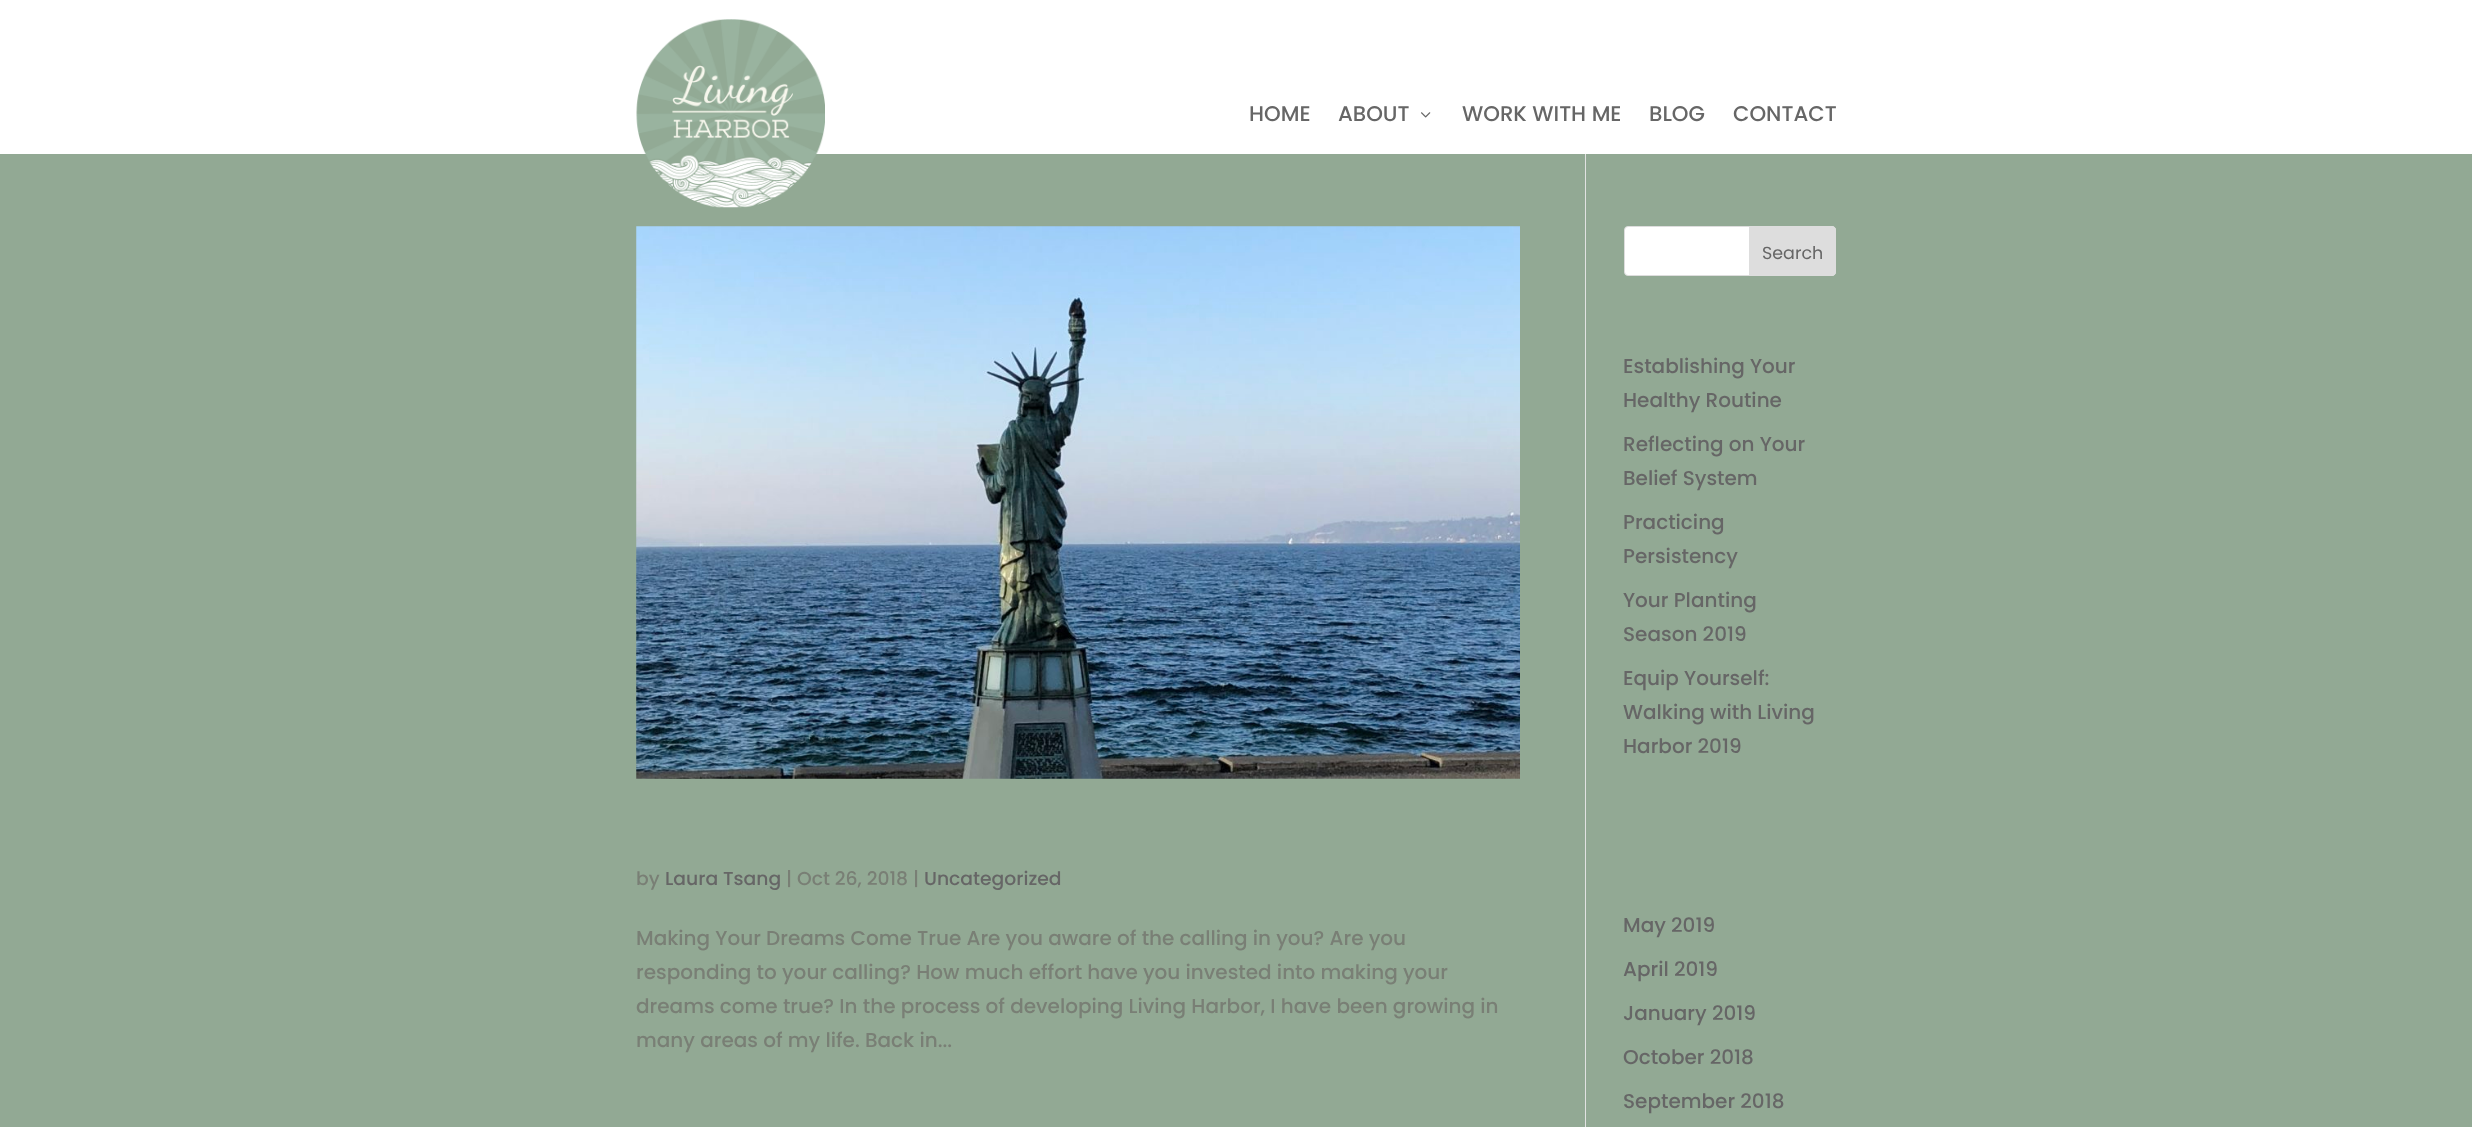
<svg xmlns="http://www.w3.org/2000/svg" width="2472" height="1127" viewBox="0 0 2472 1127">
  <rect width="100%" height="100%" fill="rgb(255,255,255)"/>
  <rect x="0" y="154" width="2472" height="973" fill="rgb(146,169,148)"/>
  <image x="636" y="19" width="189" height="189" href="pic1.png"/>
  <g font-family="Poppins" font-size="21.25" font-weight="500" fill="rgb(102,102,102)">
    <text x="1249" y="121">HOME</text>
    <text x="1338" y="121">ABOUT</text>
  </g>
  <image x="1421" y="112" width="10" height="6" href="pic2.png"/>
  <g font-family="Poppins" font-size="21.25" font-weight="500" fill="rgb(102,102,102)">
    <text x="1462" y="121">WORK WITH ME</text>
    <text x="1649" y="121">BLOG</text>
    <text x="1733" y="121">CONTACT</text>
  </g>
  <rect x="1585" y="154" width="1" height="973" fill="rgb(226,226,226)"/>
  <image x="636" y="226" width="884" height="553" href="pic3.png"/>
  <text x="636" y="885" font-family="Poppins" font-size="18.75" font-weight="500" fill="rgb(121,127,117)">by</text>
  <text x="665" y="885" font-family="Poppins" font-size="18.75" font-weight="500" fill="rgb(102,102,102)">Laura Tsang</text>
  <text x="786" y="885" font-family="Poppins" font-size="18.75" font-weight="500" fill="rgb(121,127,117)">| Oct 26, 2018 |</text>
  <text x="924" y="885" font-family="Poppins" font-size="18.75" font-weight="500" fill="rgb(102,102,102)">Uncategorized</text>
  <g font-family="Poppins" font-size="20" font-weight="500" fill="rgb(121,127,117)">
    <text>
      <tspan x="636" y="945">Making Your Dreams Come True Are you aware of the calling in you? Are you</tspan>
      <tspan x="636" y="979">responding to your calling? How much effort have you invested into making your</tspan>
      <tspan x="636" y="1013">dreams come true? In the process of developing Living Harbor, I have been growing in</tspan>
      <tspan x="636" y="1047">many areas of my life. Back in...</tspan>
    </text>
  </g>
  <rect x="1624.5" y="226.5" width="211" height="49" rx="3.5" fill="rgb(255,255,255)" stroke="rgb(221,221,221)"/>
  <path d="M1749.5 226.5H1832C1834 226.5 1835.5 228 1835.5 230V272C1835.5 274 1834 275.5 1832 275.5H1749.5Z" fill="rgb(221,221,221)" stroke="rgb(221,221,221)"/>
  <text x="1762" y="259" font-family="Poppins" font-size="17.5" fill="rgb(102,102,102)">Search</text>
  <g font-family="Poppins" font-size="20" font-weight="500" fill="rgb(102,102,102)">
    <text>
      <tspan x="1623" y="373">Establishing Your</tspan>
      <tspan x="1623" y="407">Healthy Routine</tspan>
    </text>
    <text>
      <tspan x="1623" y="451">Reflecting on Your</tspan>
      <tspan x="1623" y="485">Belief System</tspan>
    </text>
    <text>
      <tspan x="1623" y="529">Practicing</tspan>
      <tspan x="1623" y="563">Persistency</tspan>
    </text>
    <text>
      <tspan x="1623" y="607">Your Planting</tspan>
      <tspan x="1623" y="641">Season 2019</tspan>
    </text>
    <text>
      <tspan x="1623" y="685">Equip Yourself:</tspan>
      <tspan x="1623" y="719">Walking with Living</tspan>
      <tspan x="1623" y="753">Harbor 2019</tspan>
    </text>
    <text x="1623" y="932">May 2019</text>
    <text x="1623" y="976">April 2019</text>
    <text x="1623" y="1020">January 2019</text>
    <text x="1623" y="1064">October 2018</text>
    <text x="1623" y="1108">September 2018</text>
  </g>
</svg>
